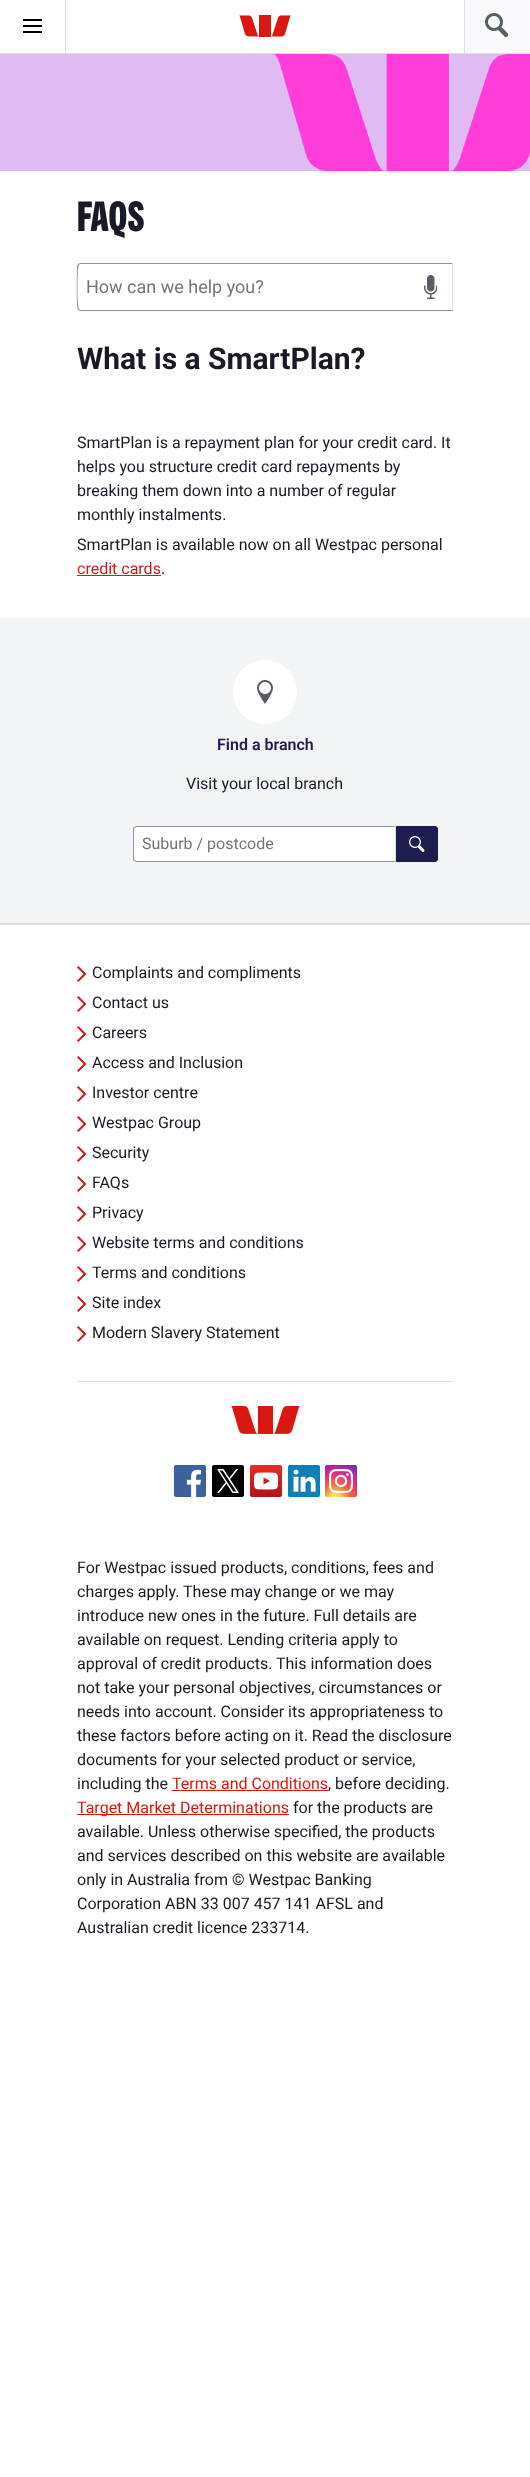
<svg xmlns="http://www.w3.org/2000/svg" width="530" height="2477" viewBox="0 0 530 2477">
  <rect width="100%" height="100%" fill="rgb(255,255,255)"/>
  <rect x="0" y="53" width="530" height="1" fill="rgb(222,222,225)"/>
  <image x="239" y="15" width="52" height="22" href="pic1.png"/>
  <rect x="465" y="0" width="65" height="53" fill="rgb(249,249,251)"/>
  <rect x="464" y="0" width="1" height="54" fill="rgb(222,222,225)"/>
  <image x="485" y="13" width="24" height="24" href="pic2.png"/>
  <rect x="65" y="0" width="1" height="54" fill="rgb(222,222,225)"/>
  <rect x="23" y="19" width="19" height="2" fill="rgb(0,0,0)"/>
  <rect x="23" y="25" width="19" height="2" fill="rgb(0,0,0)"/>
  <rect x="23" y="31" width="19" height="2" fill="rgb(0,0,0)"/>
  <image x="0" y="54" width="530" height="117" href="pic3.png"/>
  <text x="77" y="231" font-family="'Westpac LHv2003'" font-size="42" font-weight="bold" fill="rgb(24,27,37)">FAQS</text>
  <path d="M80 263L78 264L79 265L80 264H452L453 263Z" fill="rgb(147,144,162)"/>
  <path d="M453 263L452 264V310L453 311Z" fill="rgb(222,222,225)"/>
  <path d="M453 311L452 310H80L79 309L78 310L80 311Z" fill="rgb(147,144,162)"/>
  <path d="M77 266C77 271 76 308 78 310L79 309C77 308 77 266 79 265L78 264Z" fill="rgb(147,144,162)"/>
  <text x="86" y="293" font-family="Roboto" font-size="18" fill="rgb(117,117,117)">How can we help you?</text>
  <image x="424" y="275" width="13" height="24" href="pic4.png"/>
  <text x="77" y="369" font-family="Roboto" font-size="30" font-weight="bold" fill="rgb(24,27,37)">What is a SmartPlan?</text>
  <g font-family="Roboto" font-size="16" fill="rgb(24,27,37)">
    <text>
      <tspan x="77" y="448">SmartPlan is a repayment plan for your credit card. It</tspan>
      <tspan x="77" y="472">helps you structure credit card repayments by</tspan>
      <tspan x="77" y="496">breaking them down into a number of regular</tspan>
      <tspan x="77" y="520">monthly instalments.</tspan>
      <tspan x="77" y="550">SmartPlan is available now on all Westpac personal</tspan>
    </text>
  </g>
  <text x="77" y="574" font-family="Roboto" font-size="16" fill="rgb(218,23,16)">credit cards</text>
  <rect x="77" y="575" width="84" height="1" fill="rgb(218,23,16)"/>
  <text x="161" y="574" font-family="Roboto" font-size="16" fill="rgb(24,27,37)">.</text>
  <rect x="0" y="618" width="530" height="305" fill="rgb(243,244,246)"/>
  <circle cx="265" cy="692" r="32" fill="rgb(255,255,255)"/>
  <image x="257" y="680" width="16" height="24" href="pic5.png"/>
  <text x="217" y="750" font-family="Roboto" font-size="16" font-weight="600" fill="rgb(31,28,79)">Find a branch</text>
  <text x="186" y="789" font-family="Roboto" font-size="16" fill="rgb(24,27,37)">Visit your local branch</text>
  <path d="M136 826H396V862H136C134.5 862 133 860.5 133 859V829C133 827.5 134.5 826 136 826Z" fill="rgb(255,255,255)"/>
  <path d="M136 826L134 827L135 828L136 827H395L396 826Z" fill="rgb(147,144,162)"/>
  <path d="M396 826L395 827V861L396 862Z" fill="rgb(222,222,225)"/>
  <path d="M396 862L395 861H136L135 860L134 861L136 862Z" fill="rgb(147,144,162)"/>
  <path d="M133 829V859C133 860 133 861 134 861L134.5 860.5L134 859V829L134.5 827.5L134 827C133 827 133 828 133 829Z" fill="rgb(147,144,162)"/>
  <text x="142" y="849" font-family="Roboto" font-size="16" fill="rgb(117,117,117)">Suburb / postcode</text>
  <path d="M396.5 826.5H435C436.5 826.5 437.5 827.5 437.5 829V859C437.5 860.5 436.5 861.5 435 861.5H396.5Z" fill="rgb(31,28,79)" stroke="rgb(31,28,79)"/>
  <image x="409" y="836" width="16" height="16" href="pic6.png"/>
  <rect x="0" y="923" width="530" height="2" fill="rgb(222,222,225)"/>
  <image x="77" y="966" width="10" height="16" href="pic7.png"/>
  <text x="92" y="978" font-family="Roboto" font-size="16" fill="rgb(24,27,37)">Complaints and compliments</text>
  <image x="77" y="996" width="10" height="16" href="pic7.png"/>
  <text x="92" y="1008" font-family="Roboto" font-size="16" fill="rgb(24,27,37)">Contact us</text>
  <image x="77" y="1026" width="10" height="16" href="pic7.png"/>
  <text x="92" y="1038" font-family="Roboto" font-size="16" fill="rgb(24,27,37)">Careers</text>
  <image x="77" y="1056" width="10" height="16" href="pic7.png"/>
  <text x="92" y="1068" font-family="Roboto" font-size="16" fill="rgb(24,27,37)">Access and Inclusion</text>
  <image x="77" y="1086" width="10" height="16" href="pic7.png"/>
  <text x="92" y="1098" font-family="Roboto" font-size="16" fill="rgb(24,27,37)">Investor centre</text>
  <image x="77" y="1116" width="10" height="16" href="pic7.png"/>
  <text x="92" y="1128" font-family="Roboto" font-size="16" fill="rgb(24,27,37)">Westpac Group</text>
  <image x="77" y="1146" width="10" height="16" href="pic7.png"/>
  <text x="92" y="1158" font-family="Roboto" font-size="16" fill="rgb(24,27,37)">Security</text>
  <image x="77" y="1176" width="10" height="16" href="pic7.png"/>
  <text x="92" y="1188" font-family="Roboto" font-size="16" fill="rgb(24,27,37)">FAQs</text>
  <image x="77" y="1206" width="10" height="16" href="pic7.png"/>
  <text x="92" y="1218" font-family="Roboto" font-size="16" fill="rgb(24,27,37)">Privacy</text>
  <image x="77" y="1236" width="10" height="16" href="pic7.png"/>
  <text x="92" y="1248" font-family="Roboto" font-size="16" fill="rgb(24,27,37)">Website terms and conditions</text>
  <image x="77" y="1266" width="10" height="16" href="pic7.png"/>
  <text x="92" y="1278" font-family="Roboto" font-size="16" fill="rgb(24,27,37)">Terms and conditions</text>
  <image x="77" y="1296" width="10" height="16" href="pic7.png"/>
  <text x="92" y="1308" font-family="Roboto" font-size="16" fill="rgb(24,27,37)">Site index</text>
  <image x="77" y="1326" width="10" height="16" href="pic7.png"/>
  <text x="92" y="1338" font-family="Roboto" font-size="16" fill="rgb(24,27,37)">Modern Slavery Statement</text>
  <rect x="77" y="1381" width="376" height="1" fill="rgb(222,222,225)"/>
  <image x="231" y="1406" width="69" height="28" href="pic8.png"/>
  <image x="174" y="1465" width="32" height="32" href="pic9.png"/>
  <image x="212" y="1465" width="32" height="32" href="pic10.png"/>
  <image x="250" y="1465" width="32" height="32" href="pic11.png"/>
  <image x="288" y="1465" width="32" height="32" href="pic12.png"/>
  <image x="325" y="1465" width="32" height="32" href="pic13.png"/>
  <g font-family="Roboto" font-size="16" fill="rgb(24,27,37)">
    <text>
      <tspan x="77" y="1573">For Westpac issued products, conditions, fees and</tspan>
      <tspan x="77" y="1597">charges apply. These may change or we may</tspan>
      <tspan x="77" y="1621">introduce new ones in the future. Full details are</tspan>
      <tspan x="77" y="1645">available on request. Lending criteria apply to</tspan>
      <tspan x="77" y="1669">approval of credit products. This information does</tspan>
      <tspan x="77" y="1693">not take your personal objectives, circumstances or</tspan>
      <tspan x="77" y="1717">needs into account. Consider its appropriateness to</tspan>
      <tspan x="77" y="1741">these factors before acting on it. Read the disclosure</tspan>
      <tspan x="77" y="1765">documents for your selected product or service,</tspan>
      <tspan x="77" y="1789">including the</tspan>
    </text>
  </g>
  <text x="172" y="1789" font-family="Roboto" font-size="16" fill="rgb(218,23,16)">Terms and Conditions</text>
  <rect x="172" y="1790" width="156" height="1" fill="rgb(218,23,16)"/>
  <text x="328" y="1789" font-family="Roboto" font-size="16" fill="rgb(24,27,37)">, before deciding.</text>
  <rect x="77" y="1814" width="212" height="1" fill="rgb(218,23,16)"/>
  <text x="77" y="1813" font-family="Roboto" font-size="16" fill="rgb(218,23,16)">Target Market Determinations</text>
  <g font-family="Roboto" font-size="16" fill="rgb(24,27,37)">
    <text x="293" y="1813">for the products are</text>
    <text>
      <tspan x="77" y="1837">available. Unless otherwise specified, the products</tspan>
      <tspan x="77" y="1861">and services described on this website are available</tspan>
      <tspan x="77" y="1885">only in Australia from © Westpac Banking</tspan>
      <tspan x="77" y="1909">Corporation ABN 33 007 457 141 AFSL and</tspan>
      <tspan x="77" y="1933">Australian credit licence 233714.</tspan>
    </text>
  </g>
</svg>
